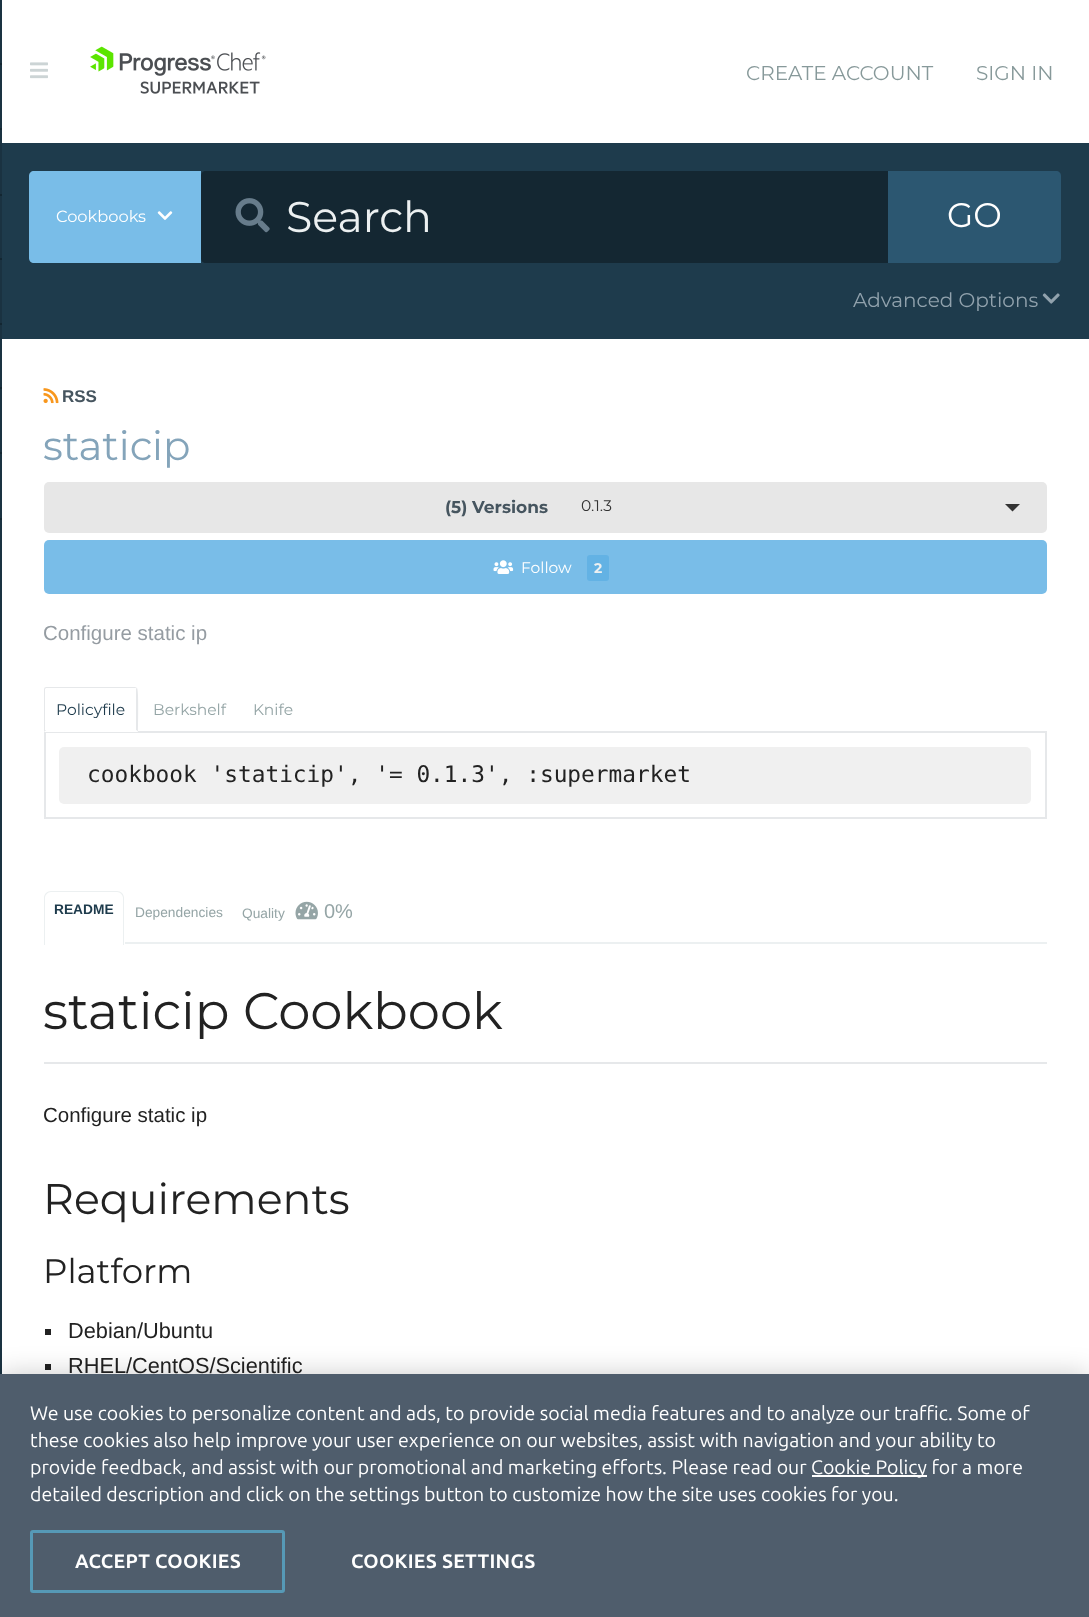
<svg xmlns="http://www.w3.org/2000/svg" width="1089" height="1617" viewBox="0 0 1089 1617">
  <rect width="100%" height="100%" fill="rgb(255,255,255)"/>
  <rect x="0" y="0" width="2" height="1374" fill="rgb(26,50,65)"/>
  <rect x="0" y="63" width="2" height="2" fill="rgb(19,38,49)"/>
  <rect x="0" y="128" width="2" height="2" fill="rgb(19,38,49)"/>
  <rect x="0" y="194" width="2" height="2" fill="rgb(19,38,49)"/>
  <rect x="0" y="258" width="2" height="2" fill="rgb(19,38,49)"/>
  <rect x="0" y="323" width="2" height="2" fill="rgb(19,38,49)"/>
  <rect x="0" y="387" width="2" height="2" fill="rgb(19,38,49)"/>
  <rect x="0" y="452" width="2" height="2" fill="rgb(19,38,49)"/>
  <rect x="0" y="518" width="2" height="2" fill="rgb(19,38,49)"/>
  <image x="30" y="62" width="18" height="17" href="pic1.png"/>
  <image x="90" y="46" width="176" height="48" href="pic2.png"/>
  <g font-family="Montserrat" font-size="20" fill="rgb(135,153,154)">
    <text x="746" y="80">CREATE ACCOUNT</text>
    <text x="976" y="80">SIGN IN</text>
  </g>
  <rect x="2" y="143" width="1087" height="196" fill="rgb(30,59,76)"/>
  <path d="M34 171H201V263H34C31 263 29 261 29 258V176C29 173 31 171 34 171Z" fill="rgb(121,189,232)"/>
  <text x="56" y="222" font-family="Montserrat" font-size="16.25" fill="rgb(255,255,255)">Cookbooks</text>
  <image x="157" y="211" width="16" height="9" href="pic3.png"/>
  <path d="M206 171H888V263H206C203 263 201 261 201 258V176C201 173 203 171 206 171Z" fill="rgb(20,39,50)"/>
  <image x="235" y="198" width="35" height="35" href="pic4.png"/>
  <text x="286" y="232" font-family="Montserrat" font-size="42.75" fill="rgb(236,240,241)">Search</text>
  <path d="M888 171H1056C1059 171 1061 173 1061 176V258C1061 261 1059 263 1056 263H888Z" fill="rgb(44,87,113)"/>
  <text x="947" y="227" font-family="Montserrat" font-size="34" fill="rgb(255,255,255)">GO</text>
  <text x="853" y="307" font-family="Montserrat" font-size="20" fill="rgb(145,162,173)">Advanced Options</text>
  <image x="1042" y="293" width="18" height="11" href="pic5.png"/>
  <image x="43" y="388" width="16" height="16" href="pic6.png"/>
  <text x="62" y="402" font-family="Liberation Sans" font-size="17" font-weight="bold" fill="rgb(70,85,95)">RSS</text>
  <text x="43" y="460" font-family="Montserrat" font-size="40.5" fill="rgb(132,164,186)">staticip</text>
  <rect x="44" y="482" width="1003" height="51" rx="5" fill="rgb(231,231,231)"/>
  <text x="445" y="513" font-family="Montserrat" font-size="17" font-weight="bold" fill="rgb(70,85,95)">(5) Versions</text>
  <text x="581" y="511" font-family="Montserrat" font-size="15.5" fill="rgb(51,51,51)">0.1.3</text>
  <path d="M1005 504H1020L1012.5 511.5Z" fill="rgb(51,51,51)"/>
  <rect x="44" y="540" width="1003" height="54" rx="5" fill="rgb(121,189,232)"/>
  <image x="493" y="560" width="21" height="14" href="pic7.png"/>
  <text x="521" y="573" font-family="Montserrat" font-size="15.5" fill="rgb(255,255,255)">Follow</text>
  <rect x="587" y="555" width="22" height="26" rx="3" fill="rgb(99,178,228)"/>
  <text x="594" y="573" font-family="Montserrat" font-size="14" font-weight="bold" fill="rgb(236,240,241)">2</text>
  <text x="43" y="640" font-family="Liberation Sans" font-size="20.5" fill="rgb(149,156,162)">Configure static ip</text>
  <rect x="45" y="732" width="1001" height="86" fill="none" stroke="rgb(230,232,234)" stroke-width="2"/>
  <path d="M47 687H135C136.5 687 138 688.5 138 690V732H44V690C44 688.5 45.5 687 47 687Z" fill="rgb(255,255,255)"/>
  <path d="M46 687L44 688L45 689L46 688H136V689L137 688L135 687Z" fill="rgb(230,232,234)"/>
  <path d="M138 732C138 727 139 690 137 688L136 689V730Z" fill="rgb(230,232,234)"/>
  <path d="M138 732L136 730H46L44 732Z" fill="rgb(255,255,255)"/>
  <path d="M44 688V690V732L46 730H45V689Z" fill="rgb(230,232,234)"/>
  <text x="56" y="715" font-family="Montserrat" font-size="15.5" fill="rgb(30,59,76)">Policyfile</text>
  <g font-family="Montserrat" font-size="15.5" fill="rgb(149,165,166)">
    <text x="153" y="715">Berkshelf</text>
    <text x="253" y="715">Knife</text>
  </g>
  <rect x="59" y="747" width="972" height="57" rx="5" fill="rgb(240,240,240)"/>
  <text x="87" y="782" font-family="DejaVu Sans Mono" font-size="22.8" fill="rgb(34,34,34)">cookbook 'staticip', '= 0.1.3', :supermarket</text>
  <rect x="125" y="942" width="922" height="2" fill="rgb(236,240,241)"/>
  <path d="M51 891H117C121 891 124 894 124 898V945H44V898C44 894 47 891 51 891ZM51 892H117C120 892 123 895 123 898V945H45V898C45 895 48 892 51 892Z" fill="rgb(236,240,241)" fill-rule="evenodd"/>
  <text x="54" y="914" font-family="Liberation Sans" font-size="13.75" font-weight="bold" fill="rgb(30,59,76)">README</text>
  <g font-family="Liberation Sans" font-size="13.75" fill="rgb(149,165,166)">
    <text x="135" y="917">Dependencies</text>
    <text x="242" y="918">Quality</text>
  </g>
  <image x="295" y="901" width="23" height="19" href="pic8.png"/>
  <text x="324" y="918" font-family="Liberation Sans" font-size="20" fill="rgb(149,165,166)">0%</text>
  <rect x="44" y="1062" width="1003" height="2" fill="rgb(230,232,234)"/>
  <text x="43" y="1029" font-family="Montserrat" font-size="51.25" fill="rgb(34,34,34)">staticip Cookbook</text>
  <text x="43" y="1122" font-family="Liberation Sans" font-size="20.5" fill="rgb(34,34,34)">Configure static ip</text>
  <text x="43" y="1214" font-family="Montserrat" font-size="42.75" fill="rgb(34,34,34)">Requirements</text>
  <text x="43" y="1283" font-family="Montserrat" font-size="34" fill="rgb(34,34,34)">Platform</text>
  <rect x="45" y="1329" width="6" height="6" fill="rgb(34,34,34)"/>
  <text x="68" y="1338" font-family="Liberation Sans" font-size="21.75" fill="rgb(34,34,34)">Debian/Ubuntu</text>
  <rect x="45" y="1364" width="6" height="6" fill="rgb(34,34,34)"/>
  <text x="68" y="1373" font-family="Liberation Sans" font-size="21.75" fill="rgb(34,34,34)">RHEL/CentOS/Scientific</text>
  <rect x="0" y="1374" width="1089" height="243" fill="rgba(0,0,0,0.2)" filter="blur(13.5px)"/>
  <rect x="0" y="1374" width="1089" height="243" fill="rgb(79,93,108)"/>
  <g font-family="Ubuntu" font-size="19.5" fill="rgb(255,255,255)">
    <text>
      <tspan x="30" y="1420">We use cookies to personalize content and ads, to provide social media features and to analyze our traffic. Some of</tspan>
      <tspan x="30" y="1447">these cookies also help improve your user experience on our websites, assist with navigation and your ability to</tspan>
      <tspan x="30" y="1474">provide feedback, and assist with our promotional and marketing efforts. Please read our</tspan>
    </text>
  </g>
  <rect x="812" y="1475" width="115" height="2" fill="rgb(255,255,255)"/>
  <g font-family="Ubuntu" font-size="19.5" fill="rgb(255,255,255)">
    <text x="811" y="1474">Cookie Policy for a more</text>
    <text x="30" y="1501">detailed description and click on the settings button to customize how the site uses cookies for you.</text>
  </g>
  <rect x="31.5" y="1531.5" width="252" height="60" rx="1.5" fill="none" stroke="rgb(86,153,182)" stroke-width="3"/>
  <g font-family="Ubuntu" font-size="19.5" font-weight="bold" letter-spacing="0.25" fill="rgb(255,255,255)">
    <text x="75" y="1568">ACCEPT COOKIES</text>
    <text x="351" y="1568">COOKIES SETTINGS</text>
  </g>
</svg>
